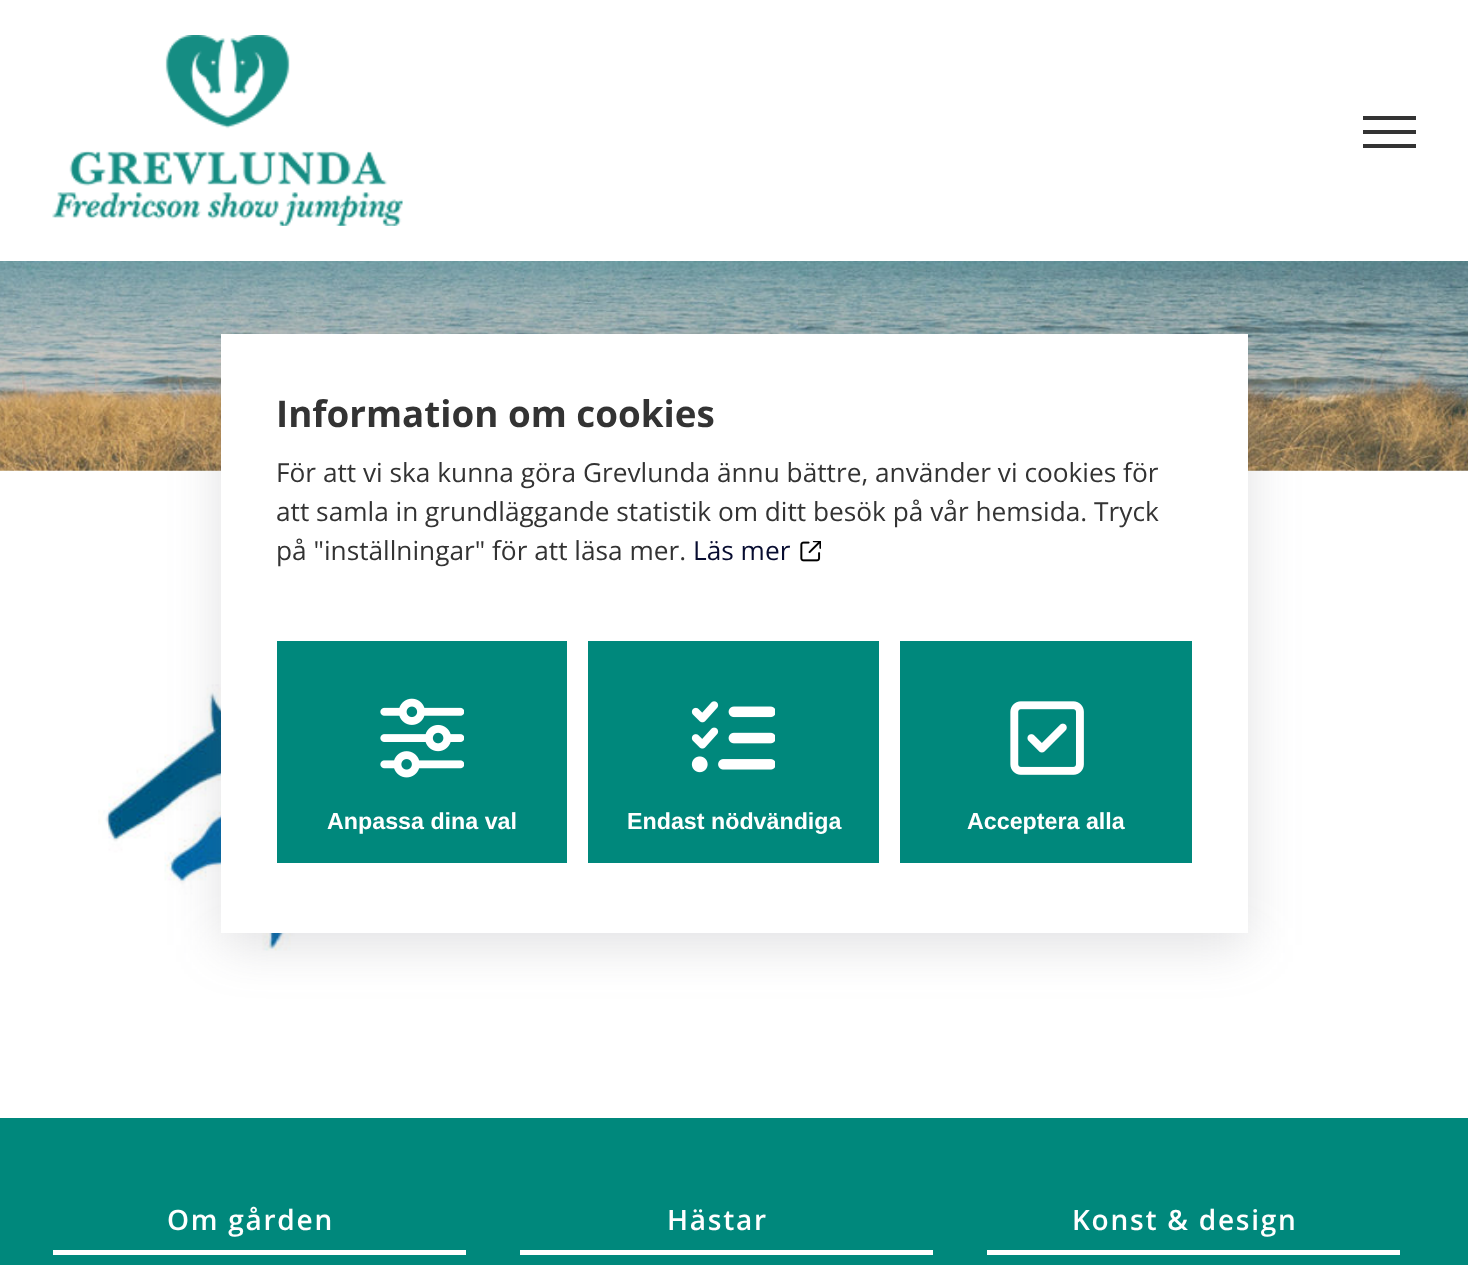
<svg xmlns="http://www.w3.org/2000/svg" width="1468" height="1265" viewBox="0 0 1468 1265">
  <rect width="100%" height="100%" fill="rgb(255,255,255)"/>
  <image x="0" y="261" width="1468" height="210" href="pic6.png"/>
  <image x="98" y="684" width="430" height="267" href="pic7.png"/>
  <rect x="221" y="347" width="1027" height="598" fill="rgba(100,100,111,0.2)" filter="blur(25.5px)"/>
  <rect x="221" y="334" width="1027" height="599" fill="rgb(255,255,255)"/>
  <text x="276" y="427" font-family="Open Sans" font-size="36.75" font-weight="bold" fill="rgb(51,51,51)">Information om cookies</text>
  <g font-family="Open Sans" font-size="26.25" fill="rgb(51,51,51)">
    <text>
      <tspan x="276" y="482">För att vi ska kunna göra Grevlunda ännu bättre, använder vi cookies för</tspan>
      <tspan x="276" y="521">att samla in grundläggande statistik om ditt besök på vår hemsida. Tryck</tspan>
      <tspan x="276" y="560">på "inställningar" för att läsa mer.</tspan>
    </text>
  </g>
  <text x="693" y="560" font-family="Open Sans" font-size="26.25" fill="rgb(7,12,48)">Läs mer</text>
  <image x="800" y="541" width="21" height="21" href="pic1.png"/>
  <rect x="277" y="641" width="290" height="222" fill="rgb(0,136,124)"/>
  <image x="380" y="698" width="84" height="80" href="pic2.png"/>
  <text x="327" y="829" font-family="Liberation Sans" font-size="23.25" font-weight="bold" fill="rgb(255,255,255)">Anpassa dina val</text>
  <rect x="588" y="641" width="291" height="222" fill="rgb(0,136,124)"/>
  <image x="691" y="701" width="84" height="72" href="pic3.png"/>
  <text x="627" y="829" font-family="Liberation Sans" font-size="23.25" font-weight="bold" fill="rgb(255,255,255)">Endast nödvändiga</text>
  <rect x="900" y="641" width="292" height="222" fill="rgb(0,136,124)"/>
  <image x="1010" y="701" width="74" height="74" href="pic4.png"/>
  <text x="967" y="829" font-family="Liberation Sans" font-size="23.25" font-weight="bold" fill="rgb(255,255,255)">Acceptera alla</text>
  <image x="52" y="35" width="351" height="191" href="pic5.png"/>
  <rect x="1363" y="116" width="53" height="4" fill="rgb(51,51,51)"/>
  <rect x="1363" y="130" width="53" height="4" fill="rgb(51,51,51)"/>
  <rect x="1363" y="144" width="53" height="4" fill="rgb(51,51,51)"/>
  <rect x="0" y="1118" width="1468" height="147" fill="rgb(0,136,124)"/>
  <rect x="53" y="1250" width="413" height="5" fill="rgb(255,255,255)"/>
  <text x="167" y="1230" font-family="Open Sans" font-size="28" font-weight="600" letter-spacing="1.75" fill="rgb(255,255,255)">Om gården</text>
  <rect x="520" y="1250" width="413" height="5" fill="rgb(255,255,255)"/>
  <text x="667" y="1230" font-family="Open Sans" font-size="28" font-weight="600" letter-spacing="1.75" fill="rgb(255,255,255)">Hästar</text>
  <rect x="987" y="1250" width="413" height="5" fill="rgb(255,255,255)"/>
  <text x="1072" y="1230" font-family="Open Sans" font-size="28" font-weight="600" letter-spacing="1.75" fill="rgb(255,255,255)">Konst &amp; design</text>
</svg>
